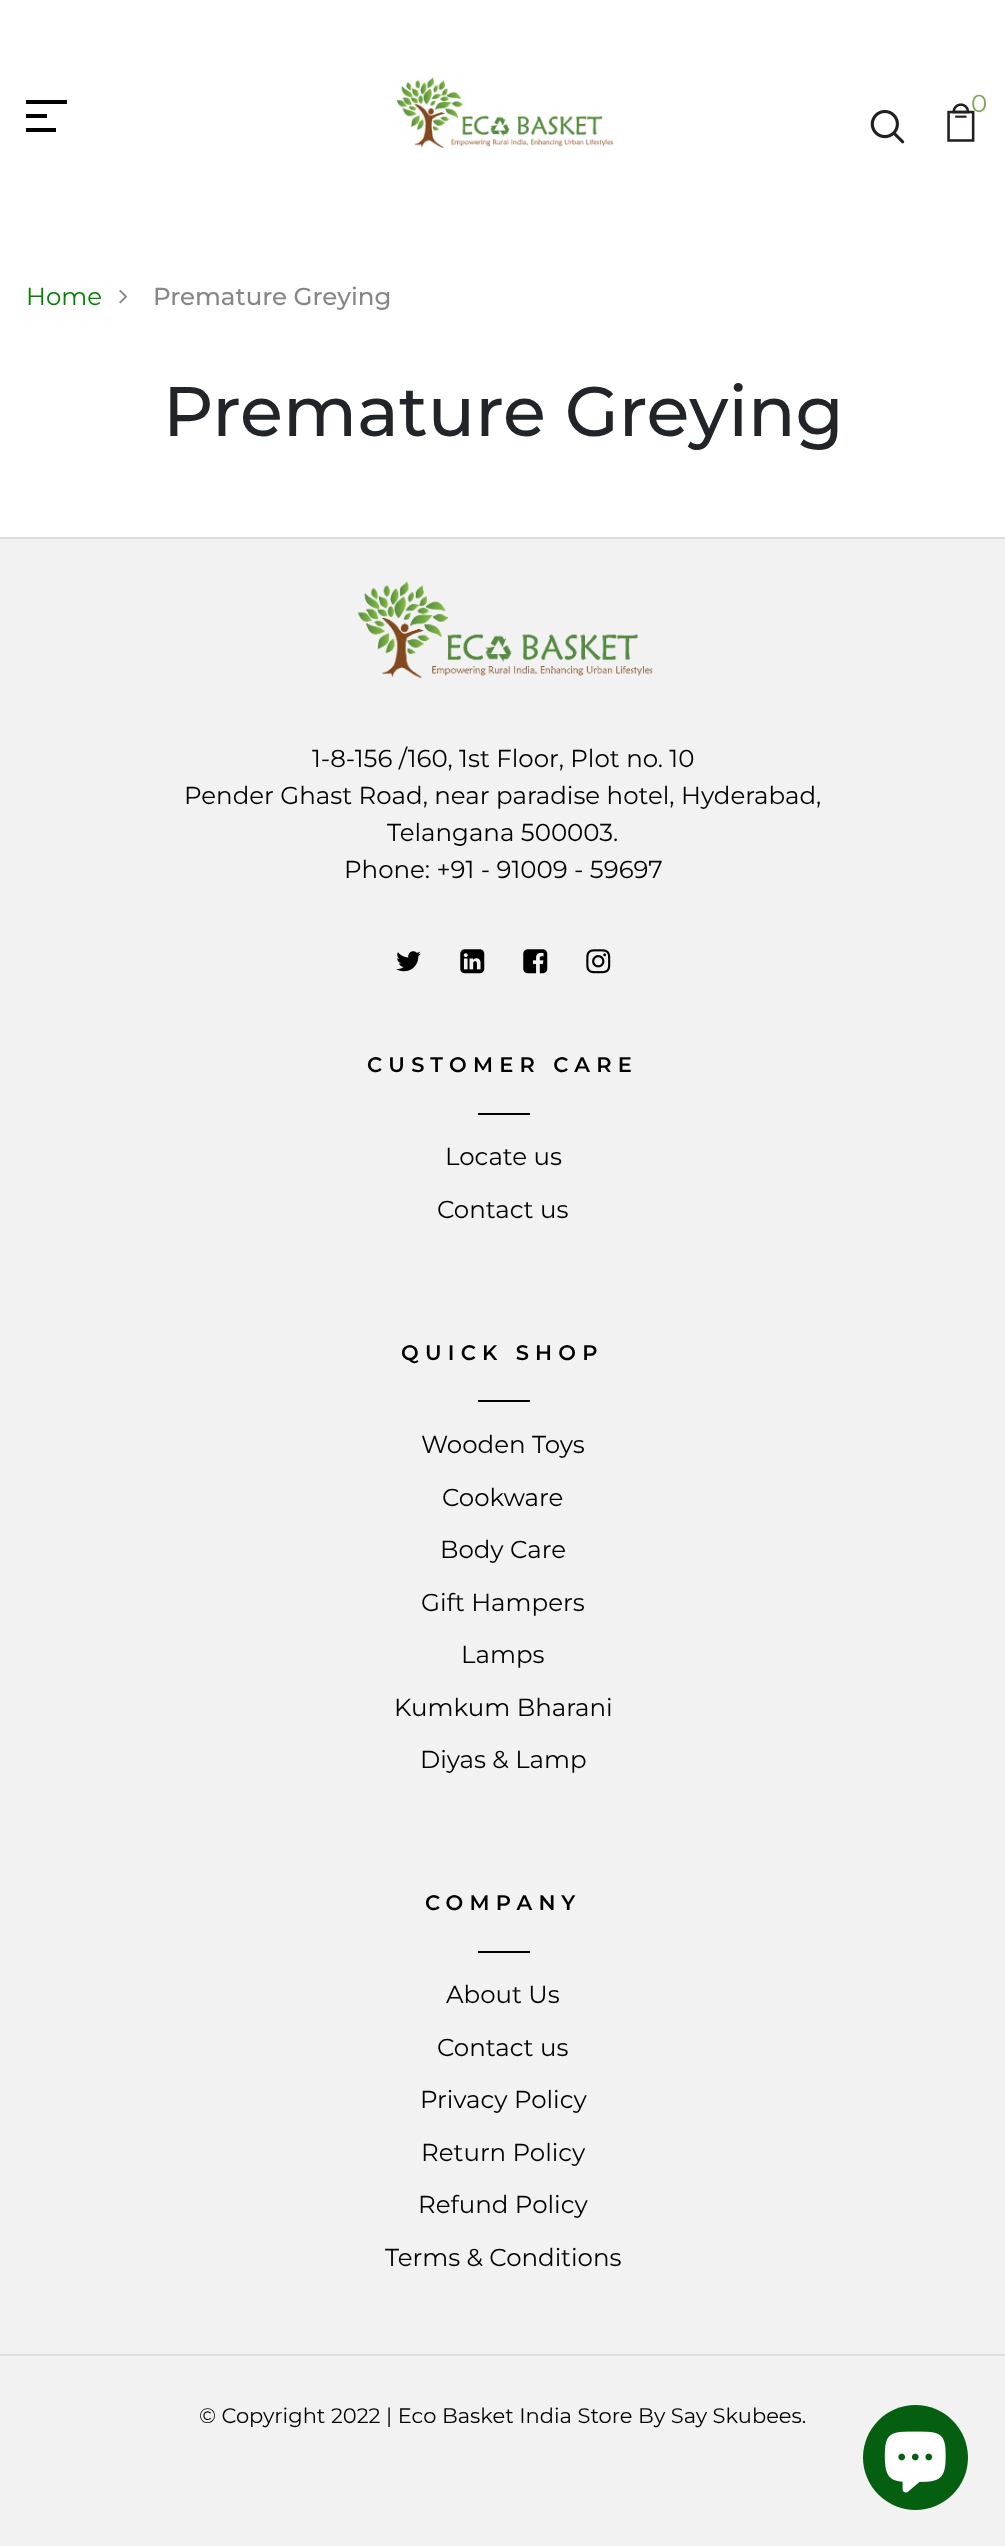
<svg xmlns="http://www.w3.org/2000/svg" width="1005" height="2546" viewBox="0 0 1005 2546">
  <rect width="100%" height="100%" fill="rgb(255,255,255)"/>
  <rect x="26" y="100" width="41" height="4" fill="rgb(0,0,0)"/>
  <rect x="26" y="114" width="21" height="4" fill="rgb(0,0,0)"/>
  <rect x="26" y="128" width="30" height="4" fill="rgb(0,0,0)"/>
  <image x="396" y="77" width="217" height="71" href="pic1.png"/>
  <image x="947" y="103" width="28" height="39" href="pic2.png"/>
  <text x="971" y="112" font-family="Montserrat" font-size="24.5" fill="rgb(127,161,90)">0</text>
  <image x="870" y="109" width="35" height="35" href="pic3.png"/>
  <text x="26" y="305" font-family="Montserrat" font-size="24.5" fill="rgb(0,128,0)">Home</text>
  <image x="119" y="289" width="9" height="15" href="pic4.png"/>
  <text x="153" y="305" font-family="Montserrat" font-size="24.5" font-weight="500" fill="rgb(135,135,135)">Premature Greying</text>
  <text x="163" y="436" font-family="Montserrat" font-size="70" font-weight="500" fill="rgb(33,37,41)">Premature Greying</text>
  <rect x="0" y="539" width="1005" height="1815" fill="rgb(242,242,242)"/>
  <rect x="0" y="537" width="1005" height="2" fill="rgb(221,221,221)"/>
  <image x="357" y="581" width="296" height="98" href="pic5.png"/>
  <g font-family="Montserrat" font-size="24.5" fill="rgb(0,0,0)">
    <text x="312" y="767">1-8-156 /160, 1st Floor, Plot no. 10</text>
    <text x="184" y="804">Pender Ghast Road, near paradise hotel, Hyderabad,</text>
    <text x="387" y="841">Telangana 500003.</text>
    <text x="344" y="878">Phone: +91 - 91009 - 59697</text>
  </g>
  <image x="396" y="951" width="25" height="21" href="pic6.png"/>
  <image x="460" y="949" width="25" height="25" href="pic7.png"/>
  <image x="523" y="949" width="25" height="25" href="pic8.png"/>
  <image x="586" y="949" width="25" height="25" href="pic9.png"/>
  <text x="367" y="1072" font-family="Montserrat" font-size="21" font-weight="600" letter-spacing="6.25" fill="rgb(0,0,0)">CUSTOMER CARE</text>
  <rect x="478" y="1113" width="52" height="2" fill="rgb(0,0,0)"/>
  <g font-family="Montserrat" font-size="24.5" fill="rgb(0,0,0)">
    <text x="445" y="1165">Locate us</text>
    <text x="437" y="1218">Contact us</text>
  </g>
  <text x="401" y="1360" font-family="Montserrat" font-size="21" font-weight="600" letter-spacing="6.25" fill="rgb(0,0,0)">QUICK SHOP</text>
  <rect x="478" y="1400" width="52" height="2" fill="rgb(0,0,0)"/>
  <g font-family="Montserrat" font-size="24.5" fill="rgb(0,0,0)">
    <text x="421" y="1453">Wooden Toys</text>
    <text x="442" y="1506">Cookware</text>
    <text x="440" y="1558">Body Care</text>
    <text x="421" y="1611">Gift Hampers</text>
    <text x="461" y="1663">Lamps</text>
    <text x="394" y="1716">Kumkum Bharani</text>
    <text x="420" y="1768">Diyas &amp; Lamp</text>
  </g>
  <text x="425" y="1910" font-family="Montserrat" font-size="21" font-weight="600" letter-spacing="6.25" fill="rgb(0,0,0)">COMPANY</text>
  <rect x="478" y="1951" width="52" height="2" fill="rgb(0,0,0)"/>
  <g font-family="Montserrat" font-size="24.5" fill="rgb(0,0,0)">
    <text x="446" y="2003">About Us</text>
    <text x="437" y="2056">Contact us</text>
    <text x="420" y="2108">Privacy Policy</text>
    <text x="421" y="2161">Return Policy</text>
    <text x="418" y="2213">Refund Policy</text>
    <text x="385" y="2266">Terms &amp; Conditions</text>
  </g>
  <rect x="0" y="2356" width="1005" height="190" fill="rgb(242,242,242)"/>
  <rect x="0" y="2354" width="1005" height="2" fill="rgb(221,221,221)"/>
  <text x="199" y="2423" font-family="Montserrat" font-size="21" fill="rgb(0,0,0)">© Copyright 2022 | Eco Basket India Store By Say Skubees.</text>
  <circle cx="915.5" cy="2457.5" r="52.5" fill="rgb(4,96,16)"/>
  <image x="884" y="2431" width="62" height="62" href="pic10.png"/>
</svg>
